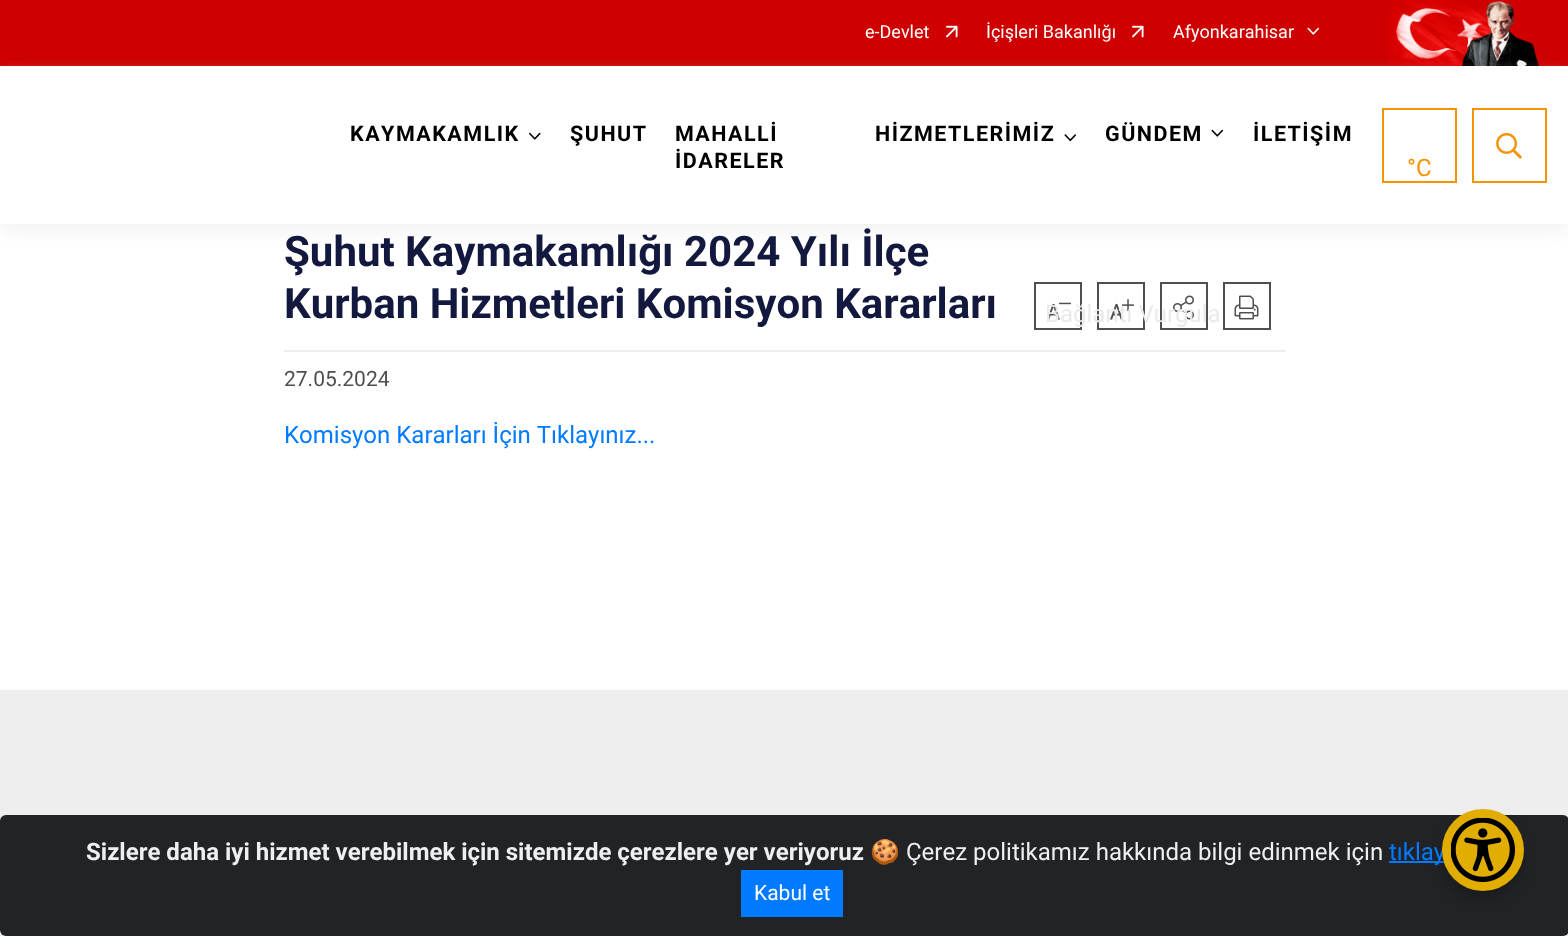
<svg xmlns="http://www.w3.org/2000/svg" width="1568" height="936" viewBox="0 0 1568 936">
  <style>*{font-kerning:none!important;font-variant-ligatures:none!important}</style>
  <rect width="100%" height="100%" fill="rgb(255,255,255)"/>
  <rect x="0" y="0" width="1568" height="66" fill="rgb(206,0,0)"/>
  <text x="865" y="38" font-family="Roboto" font-size="18" fill="rgb(255,255,255)">e-Devlet</text>
  <image x="946" y="25" width="12" height="13" href="pic1.png"/>
  <text x="986" y="38" font-family="Roboto" font-size="18" fill="rgb(255,255,255)">İçişleri Bakanlığı</text>
  <image x="1132" y="25" width="12" height="13" href="pic1.png"/>
  <text x="1173" y="38" font-family="Roboto" font-size="18" fill="rgb(255,255,255)">Afyonkarahisar</text>
  <image x="1307" y="27" width="12" height="8" href="pic2.png"/>
  <image x="1387" y="0" width="153" height="66" href="pic3.png"/>
  <rect x="0" y="75" width="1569" height="158" fill="rgba(238,238,238,0.62)" filter="blur(7.5px)"/>
  <rect x="0" y="70" width="1568" height="154" fill="rgb(255,255,255)"/>
  <text x="350" y="141" font-family="Roboto" font-size="21.5" font-weight="bold" letter-spacing="1.5" fill="rgb(0,0,0)">KAYMAKAMLIK</text>
  <image x="529" y="132" width="12" height="8" href="pic4.png"/>
  <g font-family="Roboto" font-size="21.5" font-weight="bold" letter-spacing="1.5" fill="rgb(0,0,0)">
    <text x="570" y="141">ŞUHUT</text>
    <text>
      <tspan x="675" y="141">MAHALLİ</tspan>
      <tspan x="675" y="168">İDARELER</tspan>
    </text>
    <text x="875" y="141">HİZMETLERİMİZ</text>
  </g>
  <image x="1064" y="134" width="12" height="8" href="pic5.png"/>
  <text x="1105" y="141" font-family="Roboto" font-size="21.5" font-weight="bold" letter-spacing="1.5" fill="rgb(0,0,0)">GÜNDEM</text>
  <image x="1211" y="129" width="12" height="8" href="pic6.png"/>
  <text x="1253" y="141" font-family="Roboto" font-size="21.5" font-weight="bold" letter-spacing="1.5" fill="rgb(0,0,0)">İLETİŞİM</text>
  <rect x="1383" y="109" width="73" height="73" fill="none" stroke="rgb(245,147,0)" stroke-width="2"/>
  <text x="1407" y="176" font-family="Roboto" font-size="24" fill="rgb(245,147,0)">°C</text>
  <rect x="1473" y="109" width="73" height="73" fill="none" stroke="rgb(245,147,0)" stroke-width="2"/>
  <image x="1496" y="133" width="26" height="26" href="pic7.png"/>
  <rect x="284" y="350" width="1002" height="2" fill="rgb(238,238,238)"/>
  <g font-family="Roboto" font-size="42" font-weight="bold" fill="rgb(19,24,62)">
    <text>
      <tspan x="284" y="266">Şuhut Kaymakamlığı 2024 Yılı İlçe</tspan>
      <tspan x="284" y="318">Kurban Hizmetleri Komisyon Kararları</tspan>
    </text>
  </g>
  <rect x="1035" y="283" width="46" height="46" fill="none" stroke="rgb(79,79,79)" stroke-width="2"/>
  <image x="1047" y="302" width="24" height="18" href="pic8.png"/>
  <rect x="1098" y="283" width="46" height="46" fill="none" stroke="rgb(79,79,79)" stroke-width="2"/>
  <image x="1110" y="299" width="24" height="21" href="pic9.png"/>
  <rect x="1161" y="283" width="46" height="46" fill="none" stroke="rgb(79,79,79)" stroke-width="2"/>
  <image x="1173" y="295" width="21" height="25" href="pic10.png"/>
  <rect x="1224" y="283" width="46" height="46" fill="none" stroke="rgb(79,79,79)" stroke-width="2"/>
  <image x="1234" y="295" width="25" height="25" href="pic11.png"/>
  <text x="284" y="386" font-family="Roboto" font-size="21" fill="rgb(79,79,79)">27.05.2024</text>
  <text x="284" y="443" font-family="Roboto" font-size="24" fill="rgb(0,123,255)">Komisyon Kararları İçin Tıklayınız...</text>
  <rect x="0" y="690" width="1568" height="246" fill="rgb(238,238,238)"/>
  <text x="1045" y="322" font-family="Roboto" font-size="24" fill="rgb(234,234,234)">Bağlantı Vurgula</text>
  <rect x="0" y="815" width="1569" height="121" rx="6" fill="rgb(33,35,39)"/>
  <rect x="1389" y="861" width="56" height="2" fill="rgb(0,123,255)"/>
  <rect x="1442" y="818" width="82" height="82" rx="41" fill="rgba(0,0,0,0.2)" filter="blur(6px)"/>
  <text x="1389" y="860" font-family="Roboto" font-size="24" fill="rgb(0,123,255)">tıklay</text>
  <circle cx="1483" cy="850" r="41" fill="rgb(225,173,1)"/>
  <image x="1451" y="818" width="64" height="64" href="pic12.png"/>
  <text x="86" y="860" font-family="Roboto" font-size="24" font-weight="bold" fill="rgb(236,240,241)">Sizlere daha iyi hizmet verebilmek için sitemizde çerezlere yer veriyoruz</text>
  <text x="870" y="860" font-family="Noto Color Emoji" font-size="24" fill="rgb(236,240,241)">🍪</text>
  <text x="906" y="860" font-family="Roboto" font-size="24" fill="rgb(236,240,241)">Çerez politikamız hakkında bilgi edinmek için</text>
  <rect x="741" y="870" width="102" height="47" fill="rgb(0,123,255)"/>
  <text x="754" y="900" font-family="Roboto" font-size="21" fill="rgb(255,255,255)">Kabul et</text>
</svg>
